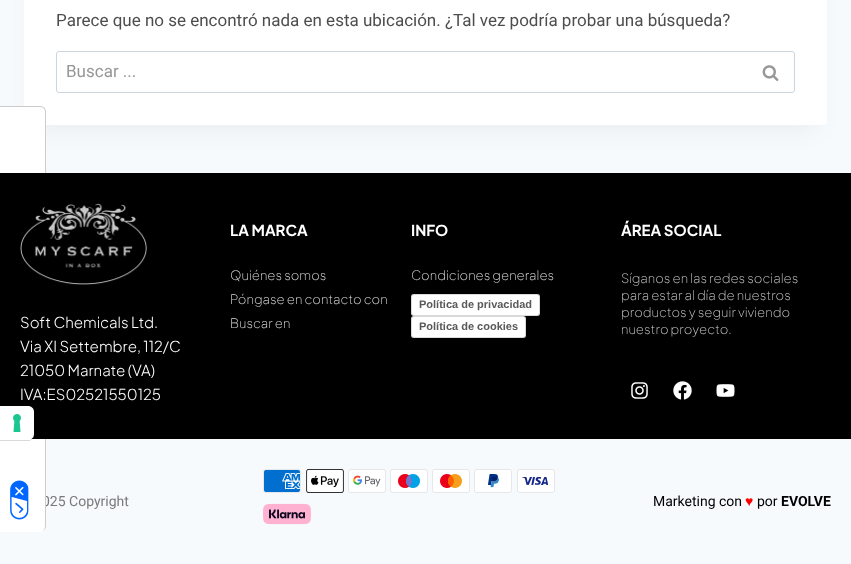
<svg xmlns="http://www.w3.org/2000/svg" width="851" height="564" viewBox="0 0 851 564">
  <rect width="100%" height="100%" fill="rgb(247,250,252)"/>
  <rect x="34" y="-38" width="783" height="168" fill="rgba(0,0,0,0.05)" filter="blur(12.5px)"/>
  <rect x="24" y="-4" width="803" height="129" rx="4" fill="rgb(255,255,255)"/>
  <text x="56" y="26" font-family="Roboto" font-size="17" fill="rgb(77,77,77)">Parece que no se encontró nada en esta ubicación. ¿Tal vez podría probar una búsqueda?</text>
  <rect x="56.5" y="51.5" width="738" height="41" rx="2.5" fill="none" stroke="rgb(203,213,224)"/>
  <text x="66" y="77" font-family="Roboto" font-size="17" fill="rgb(151,151,151)">Buscar ...</text>
  <image x="762" y="65" width="17" height="16" href="pic1.png"/>
  <text x="42" y="506" font-family="Roboto" font-size="14" fill="rgb(122,122,122)">025 Copyright</text>
  <path d="M-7 532V106H40C43 106 46 108 46 112V526C46 529 43 532 40 532Z" fill="rgb(255,255,255)"/>
  <path d="M-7 532V106H40C43 106 46 108 46 112V526C46 529 43 532 40 532ZM-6 532V107H40C43 107 45 109 45 112V526C45 529 43 532 40 532Z" fill="rgba(0,0,0,0.2)" fill-rule="evenodd"/>
  <rect x="0" y="173" width="851" height="266" fill="rgb(0,0,0)"/>
  <text x="230" y="236" font-family="Plus Jakarta Sans" font-size="15" font-weight="bold" fill="rgb(255,255,255)">LA MARCA</text>
  <g font-family="Plus Jakarta Sans" font-size="13" font-weight="200" fill="rgb(217,217,217)">
    <text>
      <tspan x="230" y="280">Quiénes somos</tspan>
      <tspan x="230" y="304">Póngase en contacto con</tspan>
      <tspan x="230" y="328">Buscar en</tspan>
    </text>
  </g>
  <text x="411" y="236" font-family="Plus Jakarta Sans" font-size="15" font-weight="bold" fill="rgb(255,255,255)">INFO</text>
  <text x="411" y="280" font-family="Plus Jakarta Sans" font-size="13" font-weight="200" fill="rgb(217,217,217)">Condiciones generales</text>
  <rect x="411" y="294" width="129" height="22" rx="3" fill="rgb(255,255,255)"/>
  <rect x="411.5" y="294.5" width="128" height="21" rx="2.5" fill="none" stroke="rgba(0,0,0,0.15)"/>
  <text x="419" y="308" font-family="Liberation Sans" font-size="11" font-weight="bold" fill="rgb(89,89,89)">Política de privacidad</text>
  <rect x="411" y="316" width="115" height="22" rx="3" fill="rgb(255,255,255)"/>
  <rect x="411.5" y="316.5" width="114" height="21" rx="2.5" fill="none" stroke="rgba(0,0,0,0.15)"/>
  <text x="419" y="330" font-family="Liberation Sans" font-size="11" font-weight="bold" fill="rgb(89,89,89)">Política de cookies</text>
  <text x="621" y="236" font-family="Plus Jakarta Sans" font-size="15" font-weight="bold" fill="rgb(255,255,255)">ÁREA SOCIAL</text>
  <g font-family="Plus Jakarta Sans" font-size="13" font-weight="200" fill="rgb(195,195,195)">
    <text>
      <tspan x="621" y="283">Síganos en las redes sociales</tspan>
      <tspan x="621" y="300">para estar al día de nuestros</tspan>
      <tspan x="621" y="317">productos y seguir viviendo</tspan>
      <tspan x="621" y="334">nuestro proyecto.</tspan>
    </text>
  </g>
  <image x="631" y="382" width="17" height="17" href="pic2.png"/>
  <image x="673" y="381" width="19" height="19" href="pic3.png"/>
  <image x="716" y="384" width="19" height="13" href="pic4.png"/>
  <image x="20" y="203" width="127" height="82" href="pic5.png"/>
  <g font-family="Plus Jakarta Sans" font-size="15" font-weight="300" fill="rgb(255,255,255)">
    <text>
      <tspan x="20" y="328">Soft Chemicals Ltd.</tspan>
      <tspan x="20" y="352">Via XI Settembre, 112/C</tspan>
      <tspan x="20" y="376">21050 Marnate (VA)</tspan>
      <tspan x="20" y="400">IVA:ES02521550125</tspan>
    </text>
  </g>
  <image x="263" y="469" width="38" height="24" href="pic6.png"/>
  <image x="306" y="469" width="38" height="24" href="pic7.png"/>
  <image x="348" y="469" width="38" height="24" href="pic8.png"/>
  <image x="390" y="469" width="38" height="24" href="pic9.png"/>
  <image x="432" y="469" width="38" height="24" href="pic10.png"/>
  <image x="474" y="469" width="38" height="24" href="pic11.png"/>
  <image x="517" y="469" width="38" height="24" href="pic12.png"/>
  <image x="263" y="503" width="48" height="22" href="pic13.png"/>
  <text x="653" y="506" font-family="Roboto" font-size="14" fill="rgb(0,0,0)">Marketing con</text>
  <text x="745" y="506" font-family="Liberation Sans" font-size="14" fill="rgb(255,0,0)">♥</text>
  <text x="757" y="506" font-family="Roboto" font-size="14" fill="rgb(0,0,0)">por</text>
  <text x="781" y="506" font-family="Roboto" font-size="14" font-weight="bold" fill="rgb(0,0,0)">EVOLVE</text>
  <image x="10" y="480" width="19" height="40" href="pic14.png"/>
  <path d="M-.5 405.5H28C31.5 405.5 34.5 408.5 34.5 412V434C34.5 437.5 31.5 440.5 28 440.5H-.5Z" fill="none" stroke="rgba(0,0,0,0.15)"/>
  <path d="M0 406H28C31.5 406 34 408.5 34 412V434C34 437.5 31.5 440 28 440H0Z" fill="rgb(255,255,255)"/>
  <image x="13" y="414" width="8" height="18" href="pic15.png"/>
</svg>
